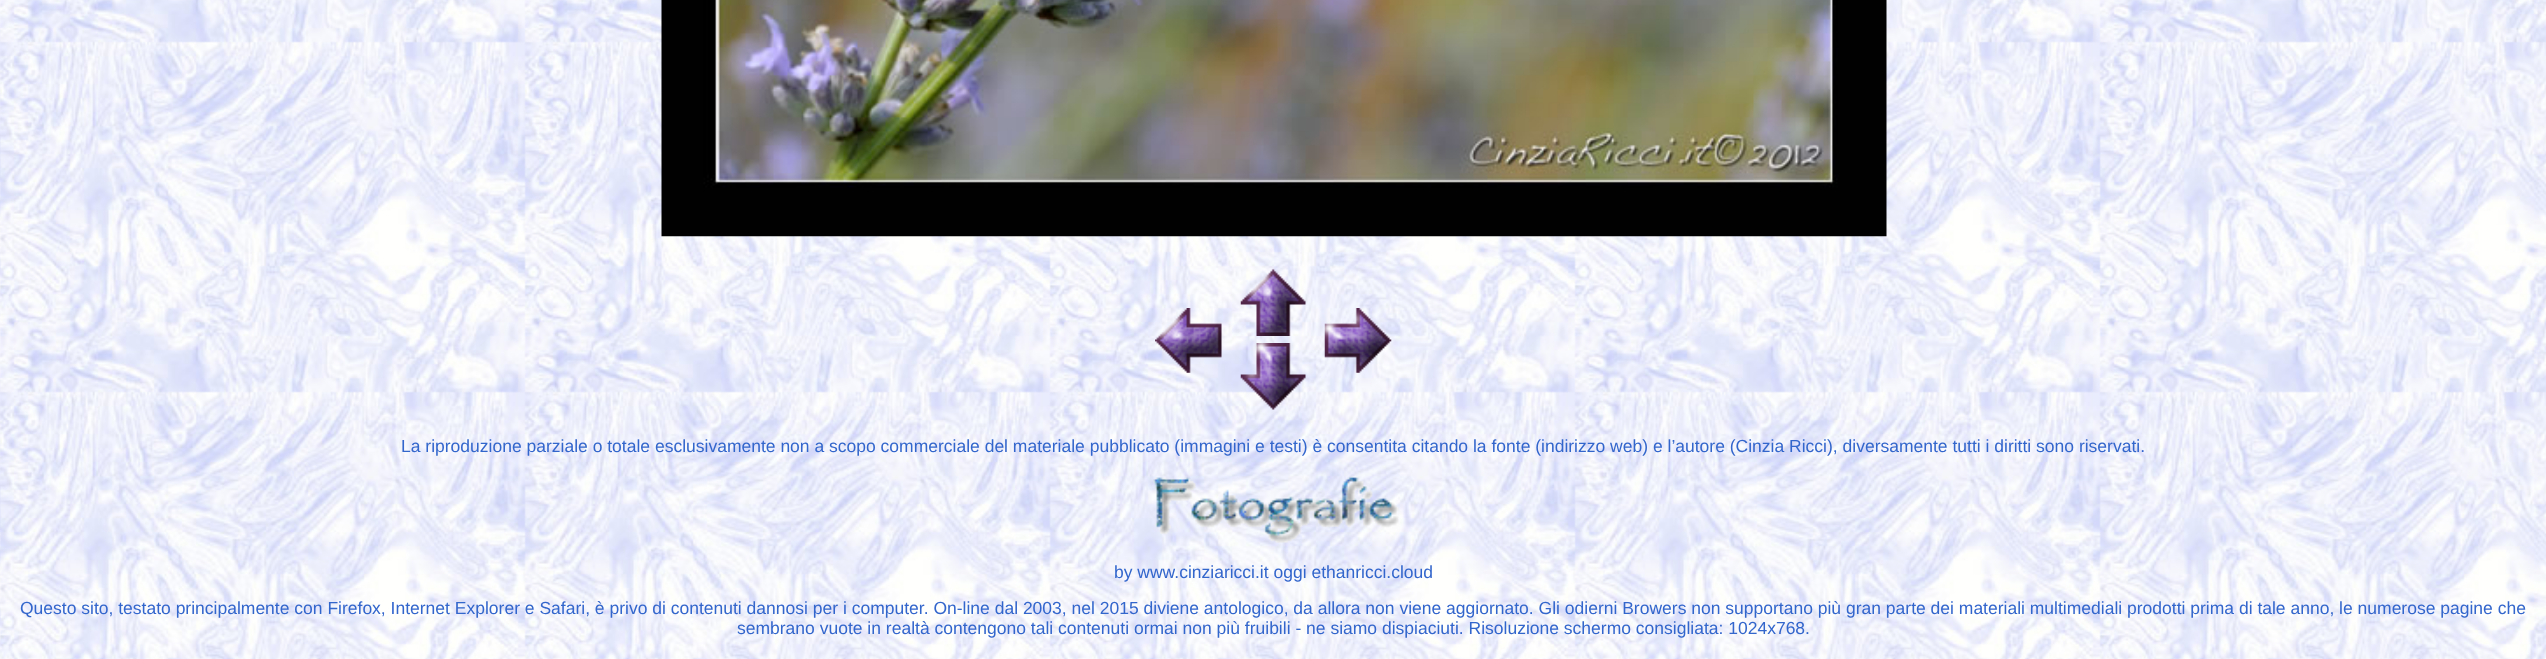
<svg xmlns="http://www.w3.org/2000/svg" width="2546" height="659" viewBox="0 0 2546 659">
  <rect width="100%" height="100%" fill="rgb(255,255,255)"/>
  <image x="0" y="0" width="2546" height="659" href="pic1.png"/>
  <image x="661" y="0" width="1226" height="237" href="pic2.png"/>
  <image x="1155" y="308" width="67" height="65" href="pic3.png"/>
  <image x="1240" y="269" width="66" height="67" href="pic4.png"/>
  <image x="1240" y="343" width="66" height="67" href="pic5.png"/>
  <image x="1324" y="308" width="68" height="65" href="pic6.png"/>
  <text x="401" y="452" font-family="Liberation Sans" font-size="17.5" fill="rgb(51,102,204)">La riproduzione parziale o totale esclusivamente non a scopo commerciale del materiale pubblicato (immagini e testi) è consentita citando la fonte (indirizzo web) e l’autore (Cinzia Ricci), diversamente tutti i diritti sono riservati.</text>
  <image x="1153" y="477" width="246" height="66" href="pic7.png"/>
  <g font-family="Liberation Sans" font-size="17.5" fill="rgb(51,102,204)">
    <text x="1114" y="578">by www.cinziaricci.it oggi ethanricci.cloud</text>
    <text x="20" y="614">Questo sito, testato principalmente con Firefox, Internet Explorer e Safari, è privo di contenuti dannosi per i computer. On-line dal 2003, nel 2015 diviene antologico, da allora non viene aggiornato. Gli odierni Browers non supportano più gran parte dei materiali multimediali prodotti prima di tale anno, le numerose pagine che</text>
    <text x="737" y="634">sembrano vuote in realtà contengono tali contenuti ormai non più fruibili - ne siamo dispiaciuti. Risoluzione schermo consigliata: 1024x768.</text>
  </g>
</svg>
